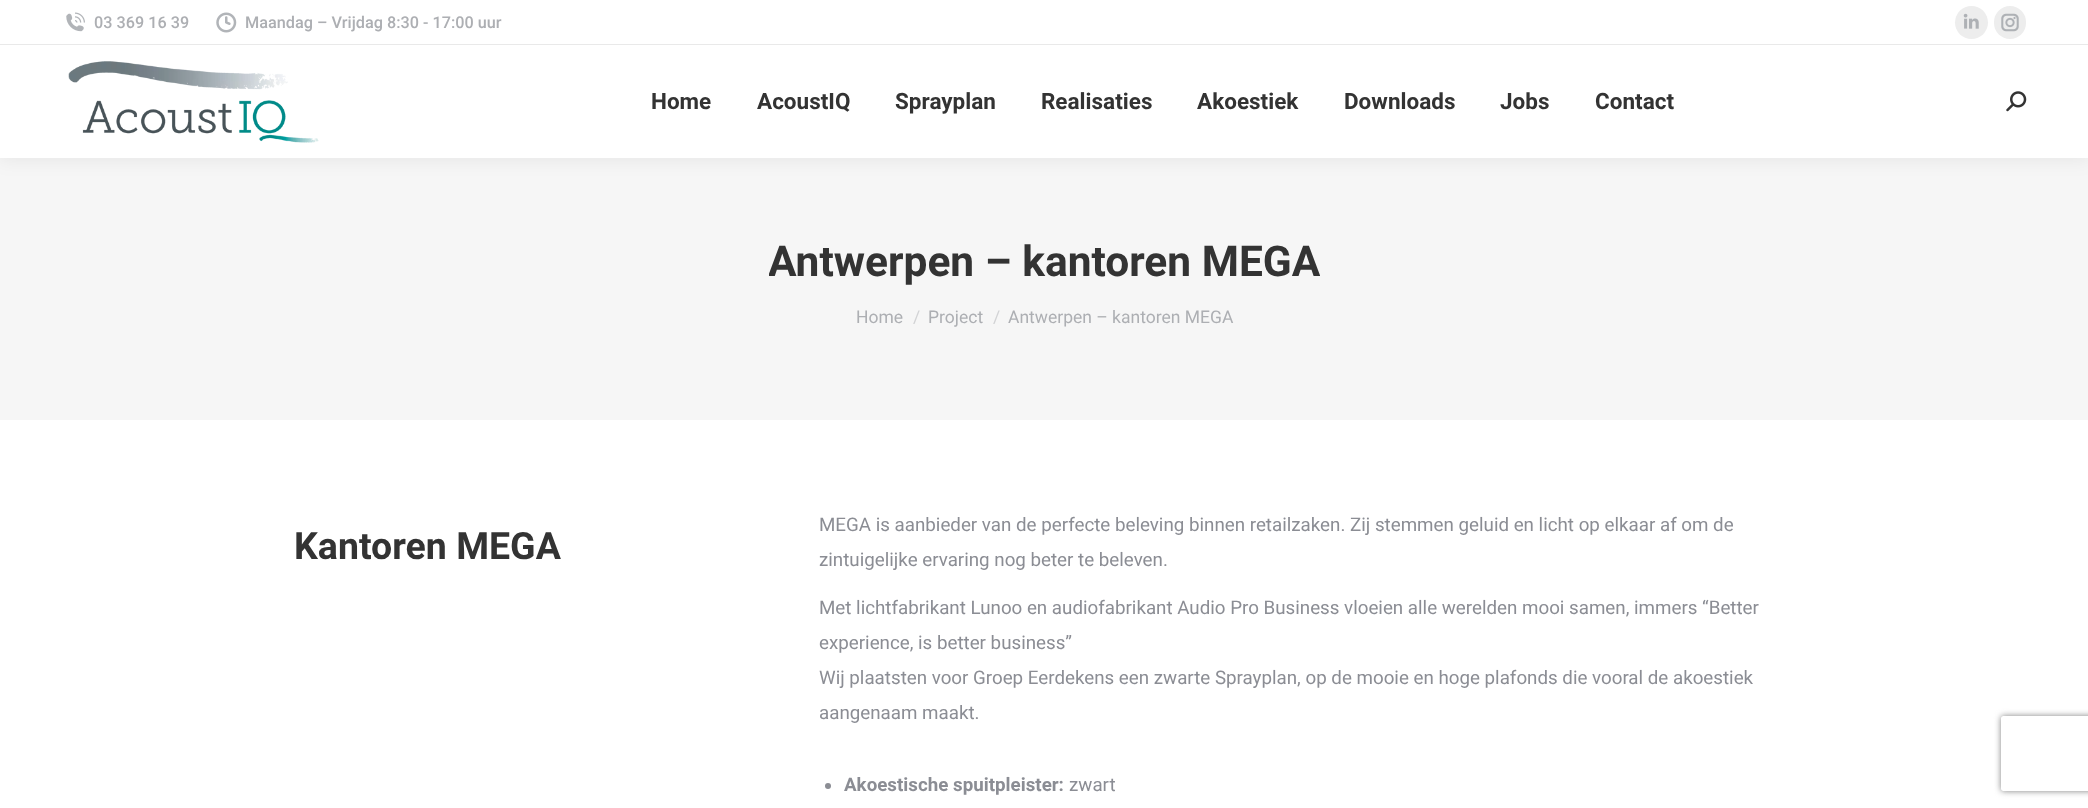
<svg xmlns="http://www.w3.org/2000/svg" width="2088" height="808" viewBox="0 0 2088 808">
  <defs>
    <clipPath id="clip1"><rect x="769" y="234" width="551" height="55"/></clipPath>
    <clipPath id="clip2"><path d="M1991 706H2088V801H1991ZM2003.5 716H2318.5C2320 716 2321 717 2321 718.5V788.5C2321 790 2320 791 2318.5 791H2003.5C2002 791 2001 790 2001 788.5V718.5C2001 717 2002 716 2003.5 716Z" clip-rule="evenodd"/></clipPath>
  </defs>
  <rect width="100%" height="100%" fill="rgb(255,255,255)"/>
  <rect x="0" y="158" width="2088" height="262" fill="rgb(246,246,246)"/>
  <rect x="-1" y="-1" width="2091" height="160" fill="rgba(0,0,0,0.07)" filter="blur(9.5px)"/>
  <rect x="0" y="0" width="2088" height="158" fill="rgb(255,255,255)"/>
  <image x="66" y="12" width="19" height="20" href="pic1.png"/>
  <text x="94" y="28" font-family="Roboto" font-size="16.25" font-weight="500" fill="rgb(173,175,179)">03 369 16 39</text>
  <image x="216" y="12" width="21" height="21" href="pic2.png"/>
  <text x="245" y="28" font-family="Roboto" font-size="16.25" font-weight="500" fill="rgb(173,175,179)">Maandag – Vrijdag 8:30 - 17:00 uur</text>
  <circle cx="1971.5" cy="22.5" r="16.5" fill="rgb(237,237,237)"/>
  <image x="1963" y="13" width="16" height="16" href="pic3.png"/>
  <rect x="1994" y="6" width="32" height="33" rx="16" fill="rgb(237,237,237)"/>
  <image x="2001" y="13" width="18" height="19" href="pic4.png"/>
  <rect x="0" y="44" width="2088" height="1" fill="rgb(233,233,233)"/>
  <image x="68" y="61" width="251" height="82" href="pic5.png"/>
  <g font-family="Roboto" font-size="22.5" font-weight="bold" fill="rgb(51,51,51)">
    <text x="651" y="109">Home</text>
    <text x="757" y="109">AcoustIQ</text>
    <text x="895" y="109">Sprayplan</text>
    <text x="1041" y="109">Realisaties</text>
    <text x="1197" y="109">Akoestiek</text>
    <text x="1344" y="109">Downloads</text>
    <text x="1500" y="109">Jobs</text>
    <text x="1595" y="109">Contact</text>
  </g>
  <image x="2006" y="91" width="21" height="21" href="pic6.png"/>
  <g clip-path="url(#clip1)">
    <text x="768" y="276" font-family="Roboto" font-size="42.5" font-weight="bold" fill="rgb(51,51,51)">Antwerpen – kantoren MEGA</text>
  </g>
  <text x="856" y="323" font-family="Roboto" font-size="17.5" fill="rgb(173,175,179)">Home</text>
  <text x="913" y="323" font-family="Roboto" font-size="17.5" fill="rgb(210,211,213)">/</text>
  <text x="928" y="323" font-family="Roboto" font-size="17.5" fill="rgb(173,175,179)">Project</text>
  <text x="993" y="323" font-family="Roboto" font-size="17.5" fill="rgb(210,211,213)">/</text>
  <text x="1008" y="323" font-family="Roboto" font-size="17.5" fill="rgb(173,175,179)">Antwerpen – kantoren MEGA</text>
  <text x="294" y="559" font-family="Roboto" font-size="37.5" font-weight="bold" fill="rgb(51,51,51)">Kantoren MEGA</text>
  <g font-family="Roboto" font-size="18.75" fill="rgb(139,141,148)">
    <text>
      <tspan x="819" y="531">MEGA is aanbieder van de perfecte beleving binnen retailzaken. Zij stemmen geluid en licht op elkaar af om de</tspan>
      <tspan x="819" y="566">zintuigelijke ervaring nog beter te beleven.</tspan>
    </text>
    <text>
      <tspan x="819" y="614">Met lichtfabrikant Lunoo en audiofabrikant Audio Pro Business vloeien alle werelden mooi samen, immers “Better</tspan>
      <tspan x="819" y="649">experience, is better business”</tspan>
      <tspan x="819" y="684">Wij plaatsten voor Groep Eerdekens een zwarte Sprayplan, op de mooie en hoge plafonds die vooral de akoestiek</tspan>
      <tspan x="819" y="719">aangenaam maakt.</tspan>
    </text>
  </g>
  <circle cx="828" cy="786" r="3" fill="rgb(139,141,148)"/>
  <text x="844" y="791" font-family="Roboto" font-size="18.75" font-weight="bold" fill="rgb(139,141,148)">Akoestische spuitpleister:</text>
  <text x="1069" y="791" font-family="Roboto" font-size="18.75" fill="rgb(139,141,148)">zwart</text>
  <g clip-path="url(#clip2)">
    <rect x="2001" y="716" width="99" height="75" rx="2.5" fill="rgb(128,128,128)" filter="blur(3px)"/>
  </g>
</svg>
